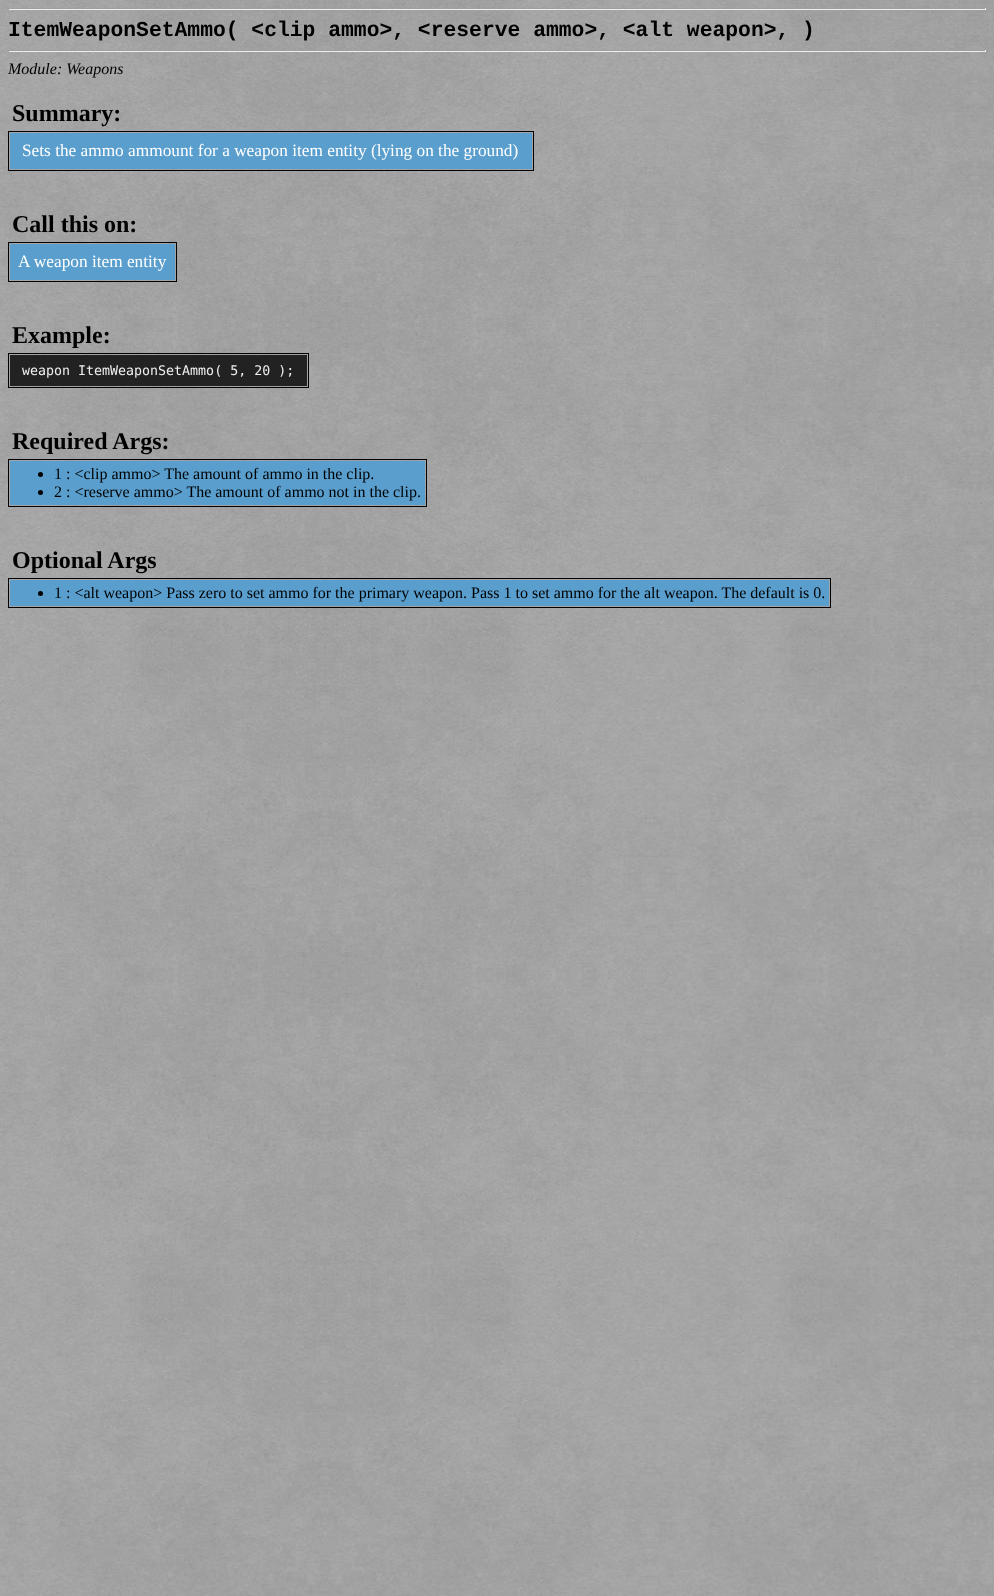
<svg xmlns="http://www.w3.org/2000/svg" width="994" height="1596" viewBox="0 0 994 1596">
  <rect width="100%" height="100%" fill="rgb(255,255,255)"/>
  <image x="0" y="0" width="994" height="1596" href="pic1.png"/>
  <rect x="8" y="8" width="961" height="1" fill="rgb(159,159,159)"/>
  <rect x="985" y="8" width="1" height="2" fill="rgb(238,238,238)"/>
  <rect x="8" y="9" width="978" height="1" fill="rgb(238,238,238)"/>
  <rect x="8" y="8" width="1" height="2" fill="rgb(159,159,159)"/>
  <text x="8" y="36" font-family="Liberation Mono" font-size="21.35" font-weight="bold" fill="rgb(0,0,0)">ItemWeaponSetAmmo( &lt;clip ammo&gt;, &lt;reserve ammo&gt;, &lt;alt weapon&gt;, )</text>
  <rect x="8" y="50" width="978" height="1" fill="rgb(159,159,159)"/>
  <rect x="985" y="50" width="1" height="2" fill="rgb(238,238,238)"/>
  <rect x="8" y="51" width="978" height="1" fill="rgb(238,238,238)"/>
  <rect x="8" y="50" width="1" height="2" fill="rgb(159,159,159)"/>
  <text x="8" y="74" font-family="Liberation Serif" font-size="16" font-style="italic" fill="rgb(0,0,0)">Module: Weapons</text>
  <text x="12" y="121" font-family="Liberation Serif" font-size="24" font-weight="bold" fill="rgb(0,0,0)">Summary:</text>
  <rect x="8.5" y="131.5" width="525" height="39" fill="none" stroke="rgb(0,0,0)"/>
  <rect x="10" y="133" width="522" height="36" fill="rgb(89,158,205)"/>
  <text x="22" y="156" font-family="Liberation Serif" font-size="17.3" fill="rgb(255,255,255)">Sets the ammo ammount for a weapon item entity (lying on the ground)</text>
  <text x="12" y="232" font-family="Liberation Serif" font-size="24" font-weight="bold" fill="rgb(0,0,0)">Call this on:</text>
  <rect x="8.5" y="242.5" width="168" height="39" fill="none" stroke="rgb(0,0,0)"/>
  <rect x="10" y="244" width="165" height="36" fill="rgb(89,158,205)"/>
  <text x="18" y="267" font-family="Liberation Serif" font-size="17.3" fill="rgb(255,255,255)">A weapon item entity</text>
  <text x="12" y="343" font-family="Liberation Serif" font-size="24" font-weight="bold" fill="rgb(0,0,0)">Example:</text>
  <rect x="8.5" y="353.5" width="300" height="34" fill="none" stroke="rgb(0,0,0)"/>
  <rect x="10" y="355" width="297" height="31" fill="rgb(34,34,34)"/>
  <text x="22" y="375" font-family="DejaVu Sans Mono" font-size="13.3" fill="rgb(238,238,238)">weapon ItemWeaponSetAmmo( 5, 20 );</text>
  <text x="12" y="449" font-family="Liberation Serif" font-size="24" font-weight="bold" fill="rgb(0,0,0)">Required Args:</text>
  <rect x="8.5" y="459.5" width="418" height="47" fill="none" stroke="rgb(0,0,0)"/>
  <rect x="10" y="461" width="415" height="44" fill="rgb(89,158,205)"/>
  <circle cx="40.5" cy="474.5" r="2.5" fill="rgb(0,0,0)"/>
  <text x="54" y="479" font-family="Liberation Serif" font-size="16" fill="rgb(0,0,0)">1 : &lt;clip ammo&gt; The amount of ammo in the clip.</text>
  <circle cx="40.5" cy="492.5" r="2.5" fill="rgb(0,0,0)"/>
  <text x="54" y="497" font-family="Liberation Serif" font-size="16" fill="rgb(0,0,0)">2 : &lt;reserve ammo&gt; The amount of ammo not in the clip.</text>
  <text x="12" y="568" font-family="Liberation Serif" font-size="24" font-weight="bold" fill="rgb(0,0,0)">Optional Args</text>
  <rect x="8.5" y="578.5" width="822" height="29" fill="none" stroke="rgb(0,0,0)"/>
  <rect x="10" y="580" width="819" height="26" fill="rgb(89,158,205)"/>
  <circle cx="40.5" cy="593.5" r="2.5" fill="rgb(0,0,0)"/>
  <text x="54" y="598" font-family="Liberation Serif" font-size="16" fill="rgb(0,0,0)">1 : &lt;alt weapon&gt; Pass zero to set ammo for the primary weapon. Pass 1 to set ammo for the alt weapon. The default is 0.</text>
</svg>
